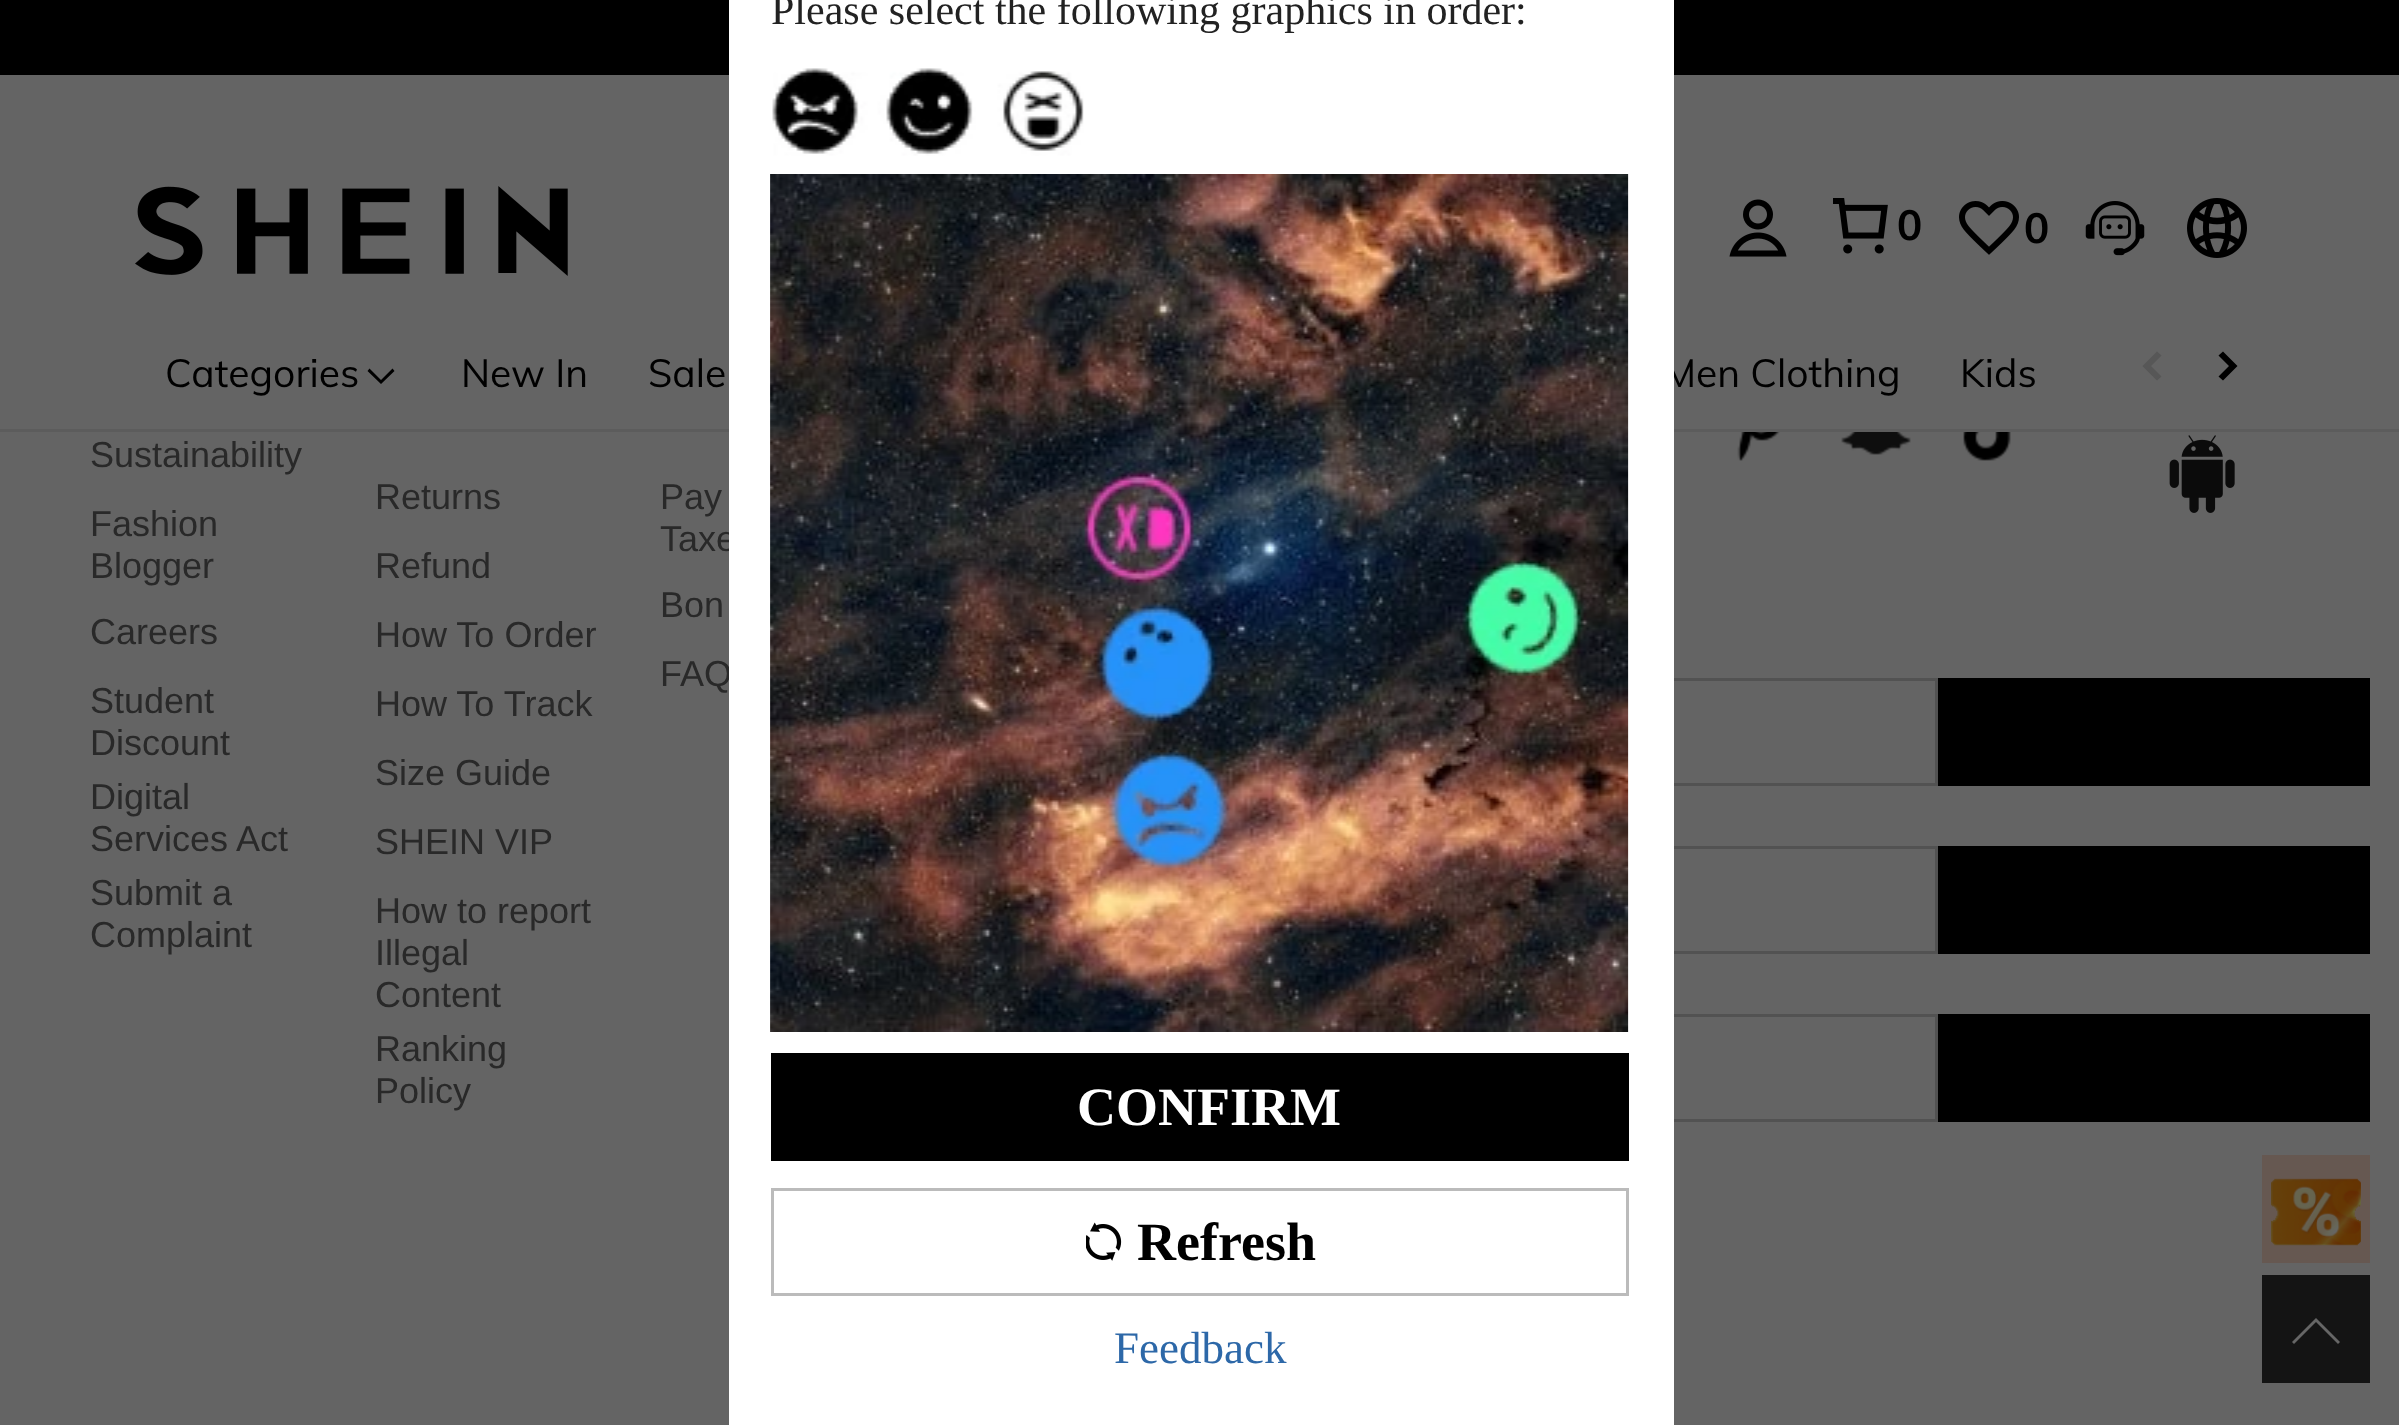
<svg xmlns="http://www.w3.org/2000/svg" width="2399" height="1425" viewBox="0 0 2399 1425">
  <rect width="100%" height="100%" fill="rgb(100,100,100)"/>
  <image x="0" y="0" width="2399" height="75" href="pic4.png"/>
  <rect x="0" y="429" width="2399" height="3" fill="rgb(92,92,92)"/>
  <text x="1663" y="387" font-family="Muli" font-size="39" fill="rgb(0,0,0)">Men Clothing</text>
  <g font-family="Liberation Sans" font-size="36" fill="rgb(41,41,41)">
    <text x="660" y="551">Taxe</text>
    <text x="660" y="686">FAQ</text>
  </g>
  <rect x="1231.5" y="679.5" width="705" height="105" fill="none" stroke="rgb(82,82,82)" stroke-width="3"/>
  <rect x="1471.5" y="847.5" width="465" height="105" fill="none" stroke="rgb(82,82,82)" stroke-width="3"/>
  <rect x="1471.5" y="1015.5" width="465" height="105" fill="none" stroke="rgb(82,82,82)" stroke-width="3"/>
  <rect x="729" y="0" width="945" height="1425" fill="rgb(255,255,255)"/>
  <text x="771" y="24" font-family="Liberation Serif" font-size="42" fill="rgb(34,34,34)">Please select the following graphics in order:</text>
  <image x="772" y="68" width="312" height="88" href="pic1.png"/>
  <image x="770" y="174" width="859" height="858" href="pic2.png"/>
  <rect x="771" y="1053" width="858" height="108" fill="rgb(0,0,0)"/>
  <text x="1077" y="1125" font-family="Liberation Serif" font-size="54" font-weight="bold" fill="rgb(255,255,255)">CONFIRM</text>
  <rect x="772.5" y="1189.5" width="855" height="105" fill="none" stroke="rgb(187,187,187)" stroke-width="3"/>
  <image x="1086" y="1222" width="36" height="39" href="pic3.png"/>
  <text x="1137" y="1260" font-family="Liberation Serif" font-size="54" font-weight="bold" fill="rgb(0,0,0)">Refresh</text>
  <text x="1114" y="1363" font-family="Liberation Serif" font-size="45" fill="rgb(45,104,168)">Feedback</text>
  <image x="135" y="186" width="433" height="90" href="pic5.png"/>
  <image x="1729" y="199" width="58" height="58" href="pic6.png"/>
  <image x="1833" y="198" width="55" height="56" href="pic7.png"/>
  <text x="1897" y="240" font-family="Muli" font-size="42" font-weight="bold" fill="rgb(0,0,0)">0</text>
  <image x="1959" y="201" width="60" height="54" href="pic8.png"/>
  <text x="2024" y="243" font-family="Muli" font-size="42" font-weight="bold" fill="rgb(0,0,0)">0</text>
  <image x="2085" y="201" width="60" height="55" href="pic9.png"/>
  <image x="2187" y="198" width="60" height="60" href="pic10.png"/>
  <text x="165" y="387" font-family="Muli" font-size="39" fill="rgb(0,0,0)">Categories</text>
  <path d="M392.5 368.5L394.5 371L381 384L367.5 371L369.5 368.5L381 380Z" fill="rgb(0,0,0)"/>
  <g font-family="Muli" font-size="39" fill="rgb(0,0,0)">
    <text x="461" y="387">New In</text>
    <text x="648" y="387">Sale</text>
    <text x="1960" y="387">Kids</text>
  </g>
  <path d="M2157 351.5L2161.5 355.5L2151 366L2161.5 376.5L2157 380.5L2142.5 366Z" fill="rgb(87,87,87)" fill-rule="evenodd"/>
  <path d="M2218.5 355.5L2223 351.5L2237.5 366L2223 380.5L2218.5 376.5L2229 366Z" fill="rgb(0,0,0)" fill-rule="evenodd"/>
  <g font-family="Liberation Sans" font-size="36" fill="rgb(41,41,41)">
    <text>
      <tspan x="90" y="467">Sustainability</tspan>
      <tspan x="90" y="536">Fashion</tspan>
      <tspan x="90" y="578">Blogger</tspan>
      <tspan x="90" y="644">Careers</tspan>
      <tspan x="90" y="713">Student</tspan>
      <tspan x="90" y="755">Discount</tspan>
      <tspan x="90" y="809">Digital</tspan>
      <tspan x="90" y="851">Services Act</tspan>
      <tspan x="90" y="905">Submit a</tspan>
      <tspan x="90" y="947">Complaint</tspan>
    </text>
    <text>
      <tspan x="375" y="509">Returns</tspan>
      <tspan x="375" y="578">Refund</tspan>
      <tspan x="375" y="647">How To Order</tspan>
      <tspan x="375" y="716">How To Track</tspan>
      <tspan x="375" y="785">Size Guide</tspan>
      <tspan x="375" y="854">SHEIN VIP</tspan>
      <tspan x="375" y="923">How to report</tspan>
      <tspan x="375" y="965">Illegal</tspan>
      <tspan x="375" y="1007">Content</tspan>
      <tspan x="375" y="1061">Ranking</tspan>
      <tspan x="375" y="1103">Policy</tspan>
    </text>
    <text x="660" y="509">Pay</text>
    <text x="660" y="617">Bon</text>
  </g>
  <image x="1737" y="432" width="43" height="29" href="pic11.png"/>
  <image x="1841" y="432" width="70" height="23" href="pic12.png"/>
  <image x="1963" y="432" width="48" height="29" href="pic13.png"/>
  <image x="2169" y="435" width="66" height="78" href="pic14.png"/>
  <rect x="1938" y="678" width="432" height="108" fill="rgb(0,0,0)"/>
  <rect x="1938" y="846" width="432" height="108" fill="rgb(0,0,0)"/>
  <rect x="1938" y="1014" width="432" height="108" fill="rgb(0,0,0)"/>
  <rect x="2262" y="1155" width="108" height="108" fill="rgb(102,88,81)"/>
  <image x="2271" y="1178" width="90" height="68" href="pic15.png"/>
  <rect x="2262" y="1275" width="108" height="108" fill="rgb(20,20,20)"/>
  <path d="M2340 1342L2316 1318L2292 1342L2294 1344L2316 1322L2338 1344Z" fill="rgb(102,102,102)"/>
</svg>
